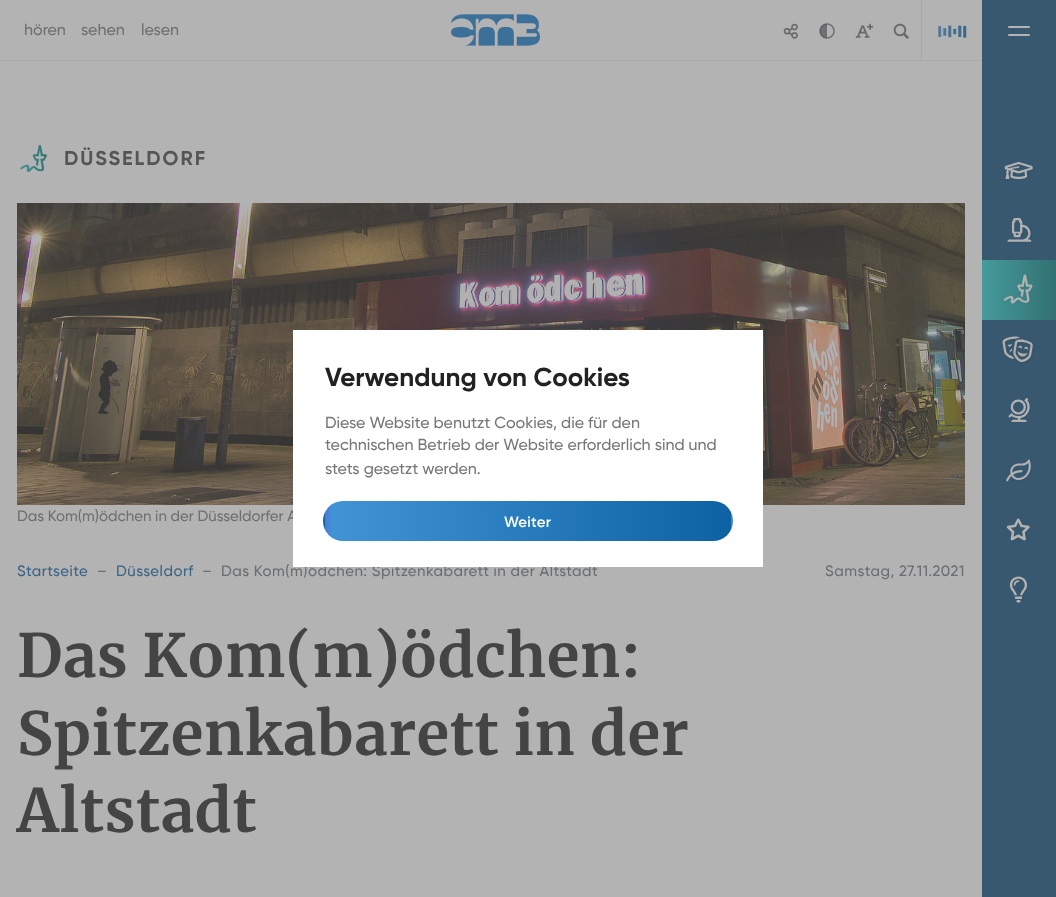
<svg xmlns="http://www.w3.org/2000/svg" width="1056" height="897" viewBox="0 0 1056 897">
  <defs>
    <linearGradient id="g1" gradientUnits="userSpaceOnUse" x1="982" y1="290" x2="1056" y2="290"><stop offset="0.02" stop-color="rgb(69,154,155)"/><stop offset="0.99" stop-color="rgb(51,113,114)"/></linearGradient>
    <clipPath id="clip1"><rect x="323" y="501" width="410" height="40" rx="20"/></clipPath>
    <linearGradient id="g2" gradientUnits="userSpaceOnUse" x1="325" y1="521" x2="-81" y2="521"><stop offset="0" stop-color="rgb(13,98,163)"/><stop offset="0.98" stop-color="rgb(64,148,213)"/><stop offset="1" stop-color="rgb(79,121,216)"/></linearGradient>
    <linearGradient id="g3" gradientUnits="userSpaceOnUse" x1="731" y1="521" x2="325" y2="521"><stop offset="0" stop-color="rgb(13,98,163)"/><stop offset="0.98" stop-color="rgb(64,148,213)"/><stop offset="1" stop-color="rgb(79,121,216)"/></linearGradient>
    <linearGradient id="g4" gradientUnits="userSpaceOnUse" x1="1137" y1="521" x2="731" y2="521"><stop offset="0" stop-color="rgb(13,98,163)"/><stop offset="0.98" stop-color="rgb(64,148,213)"/><stop offset="1" stop-color="rgb(79,121,216)"/></linearGradient>
  </defs>
  <rect width="100%" height="100%" fill="rgb(179,179,179)"/>
  <rect x="0" y="60" width="982" height="1" fill="rgb(168,168,168)"/>
  <g font-family="Gilroy" font-size="16" font-weight="500" fill="rgb(111,111,111)">
    <text x="24" y="35">hören</text>
    <text x="81" y="35">sehen</text>
    <text x="141" y="35">lesen</text>
  </g>
  <image x="451" y="14" width="89" height="32" href="pic1.png"/>
  <image x="783" y="23" width="15" height="16" href="pic2.png"/>
  <image x="819" y="23" width="16" height="16" href="pic3.png"/>
  <image x="855" y="23" width="19" height="15" href="pic4.png"/>
  <image x="893" y="23" width="16" height="16" href="pic5.png"/>
  <rect x="921" y="0" width="1" height="60" fill="rgb(168,168,168)"/>
  <image x="938" y="25" width="29" height="13" href="pic6.png"/>
  <rect x="982" y="0" width="74" height="897" fill="rgb(56,88,112)"/>
  <rect x="1008" y="26" width="22" height="2" rx="1" fill="rgb(179,179,179)"/>
  <rect x="1008" y="34" width="22" height="2" rx="1" fill="rgb(179,179,179)"/>
  <image x="1004" y="162" width="30" height="18" href="pic7.png"/>
  <image x="1007" y="218" width="25" height="25" href="pic8.png"/>
  <rect x="982" y="260" width="74" height="60" fill="url(#g1)"/>
  <image x="1003" y="274" width="31" height="31" href="pic9.png"/>
  <image x="1002" y="336" width="33" height="28" href="pic10.png"/>
  <image x="1008" y="398" width="23" height="25" href="pic11.png"/>
  <image x="1006" y="459" width="26" height="23" href="pic12.png"/>
  <image x="1006" y="518" width="25" height="24" href="pic13.png"/>
  <image x="1009" y="576" width="19" height="28" href="pic14.png"/>
  <image x="20" y="145" width="27" height="27" href="pic15.png"/>
  <text x="64" y="165" font-family="Gilroy" font-size="20" font-weight="bold" letter-spacing="2" fill="rgb(85,85,85)">DÜSSELDORF</text>
  <image x="17" y="203" width="948" height="302" href="pic16.png"/>
  <text x="17" y="521" font-family="Gilroy" font-size="15" font-weight="500" fill="rgb(111,111,111)">Das Kom(m)ödchen in der Düsseldorfer A</text>
  <text x="17" y="576" font-family="Gilroy" font-size="15" font-weight="500" letter-spacing="0.5" fill="rgb(58,100,133)">Startseite</text>
  <text x="97" y="576" font-family="Gilroy" font-size="15" font-weight="500" letter-spacing="0.5" fill="rgb(105,110,114)">–</text>
  <text x="116" y="576" font-family="Gilroy" font-size="15" font-weight="500" letter-spacing="0.5" fill="rgb(58,100,133)">Düsseldorf</text>
  <g font-family="Gilroy" font-size="15" font-weight="500" letter-spacing="0.5" fill="rgb(105,110,114)">
    <text x="202" y="576">–</text>
    <text x="221" y="576">Das Kom(m)ödchen: Spitzenkabarett in der Altstadt</text>
    <text x="825" y="576">Samstag, 27.11.2021</text>
  </g>
  <g font-family="Merriweather" font-size="59.5" font-weight="bold" letter-spacing="0.4" fill="rgb(68,68,68)">
    <text>
      <tspan x="17" y="677">Das Kom(m)ödchen:</tspan>
      <tspan x="17" y="755">Spitzenkabarett in der</tspan>
      <tspan x="17" y="832">Altstadt</tspan>
    </text>
  </g>
  <rect x="293" y="330" width="470" height="237" fill="rgb(255,255,255)"/>
  <text x="325" y="386" font-family="Gilroy" font-size="26" font-weight="bold" fill="rgb(34,34,34)">Verwendung von Cookies</text>
  <g font-family="Gilroy" font-size="16" font-weight="500" fill="rgb(119,119,119)">
    <text>
      <tspan x="325" y="428">Diese Website benutzt Cookies, die für den</tspan>
      <tspan x="325" y="450">technischen Betrieb der Website erforderlich sind und</tspan>
      <tspan x="325" y="474">stets gesetzt werden.</tspan>
    </text>
  </g>
  <g clip-path="url(#clip1)">
    <rect x="323" y="512" width="2" height="18" fill="url(#g2)"/>
    <rect x="325" y="501" width="406" height="40" fill="url(#g3)"/>
    <rect x="731" y="512" width="2" height="18" fill="url(#g4)"/>
  </g>
  <text x="504" y="527" font-family="Gilroy" font-size="15" font-weight="600" letter-spacing="0.25" fill="rgb(255,255,255)">Weiter</text>
</svg>
